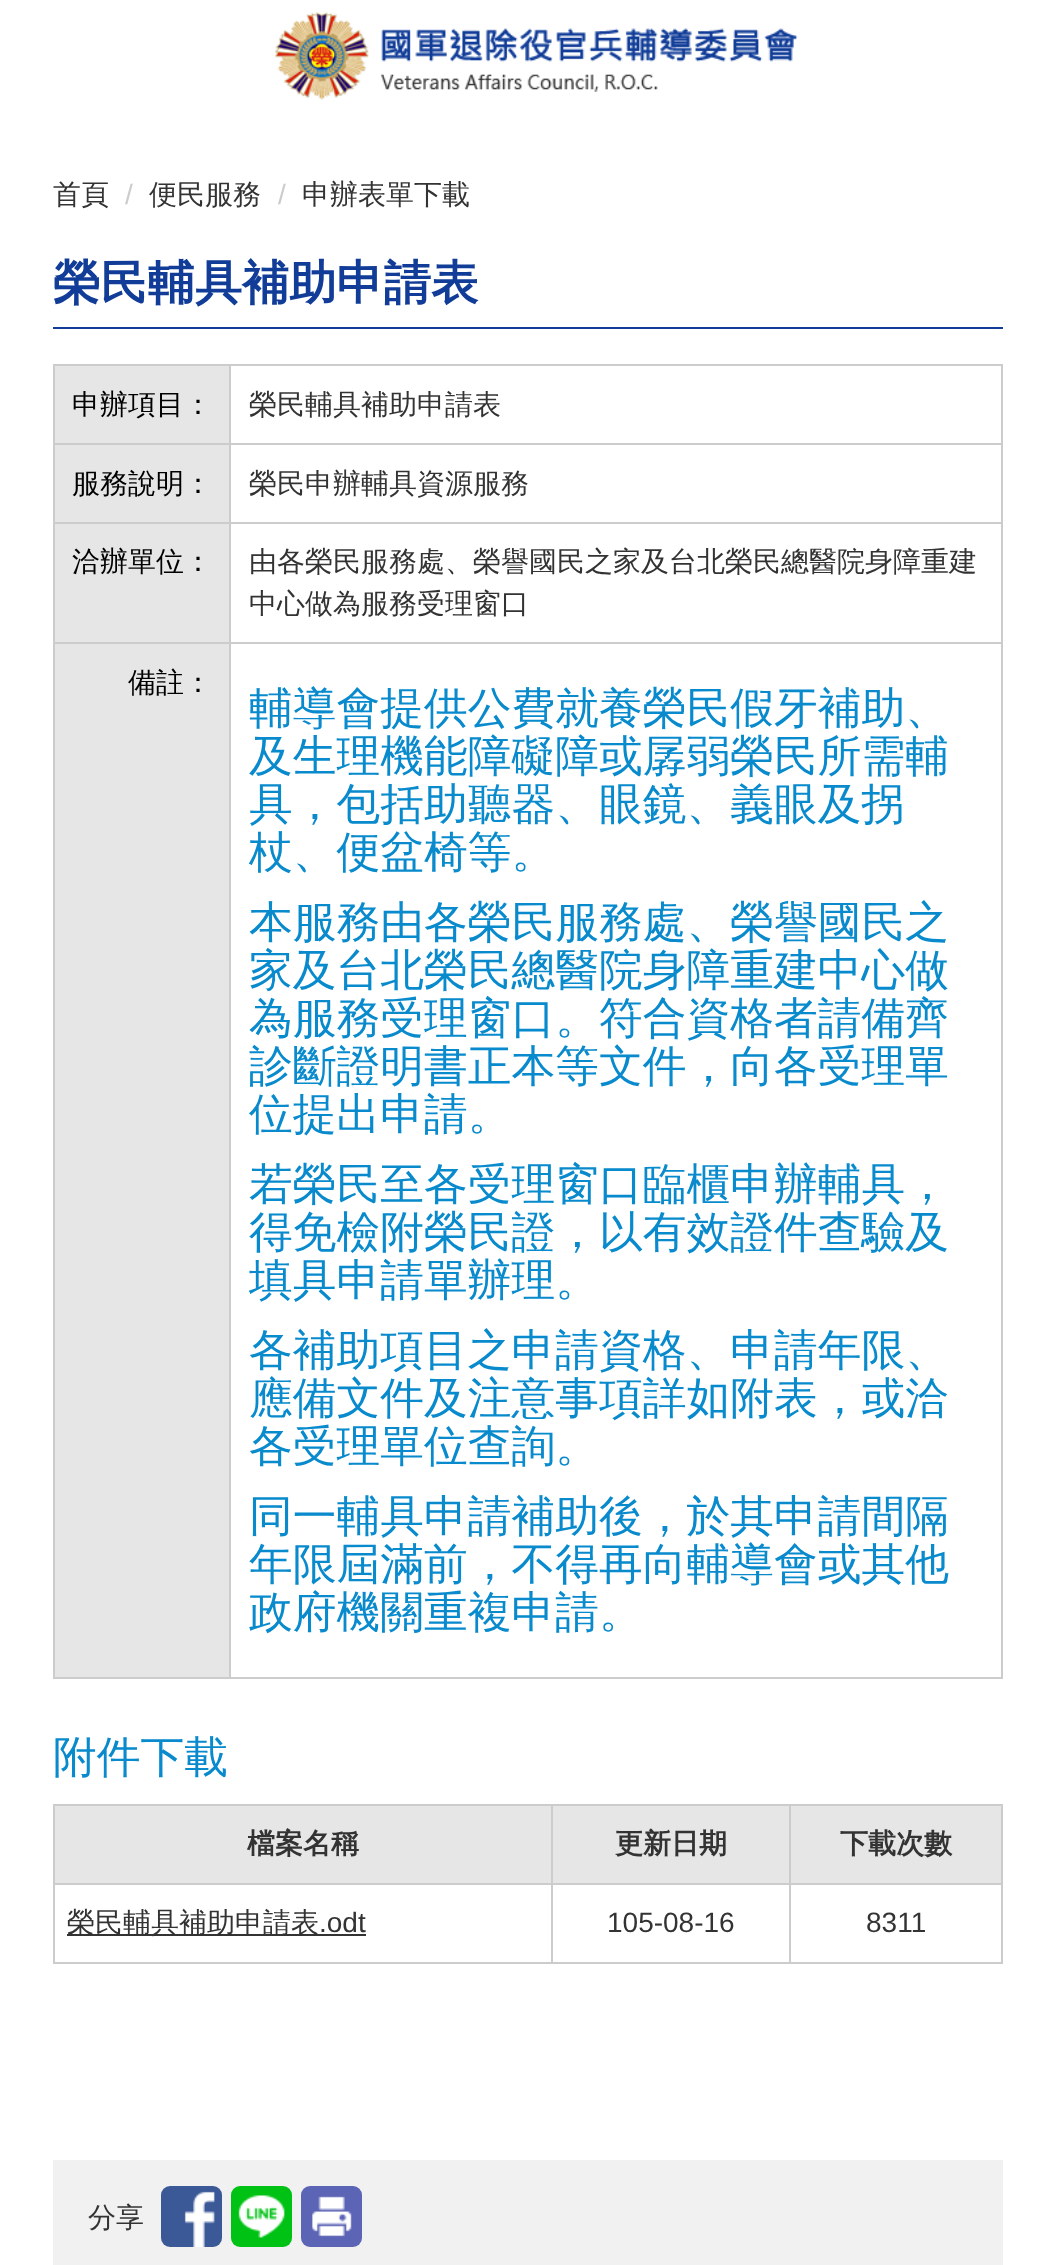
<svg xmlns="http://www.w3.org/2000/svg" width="1055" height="2265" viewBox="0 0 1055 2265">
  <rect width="100%" height="100%" fill="rgb(255,255,255)"/>
  <image x="275" y="12" width="523" height="88" href="pic1.png"/>
  <text x="53" y="204" font-family="WenQuanYi Zen Hei" font-size="28" font-weight="500" fill="rgb(51,51,51)">首頁</text>
  <text x="125" y="204" font-family="Liberation Sans" font-size="28" fill="rgb(204,204,204)">/</text>
  <text x="149" y="204" font-family="WenQuanYi Zen Hei" font-size="28" font-weight="500" fill="rgb(51,51,51)">便民服務</text>
  <text x="278" y="204" font-family="Liberation Sans" font-size="28" fill="rgb(204,204,204)">/</text>
  <text x="302" y="204" font-family="WenQuanYi Zen Hei" font-size="28" font-weight="500" fill="rgb(51,51,51)">申辦表單下載</text>
  <rect x="53" y="327" width="950" height="2" fill="rgb(17,61,152)"/>
  <text x="53" y="299" font-family="WenQuanYi Zen Hei" font-size="47.25" font-weight="bold" fill="rgb(17,61,152)">榮民輔具補助申請表</text>
  <rect x="55" y="366" width="174" height="77" fill="rgb(230,230,230)"/>
  <rect x="229" y="364" width="774" height="2" fill="rgb(204,204,204)"/>
  <rect x="229" y="443" width="774" height="2" fill="rgb(204,204,204)"/>
  <rect x="229" y="522" width="774" height="2" fill="rgb(204,204,204)"/>
  <rect x="229" y="642" width="774" height="2" fill="rgb(204,204,204)"/>
  <rect x="1001" y="642" width="2" height="1036" fill="rgb(204,204,204)"/>
  <rect x="229" y="1677" width="774" height="2" fill="rgb(204,204,204)"/>
  <rect x="229" y="642" width="2" height="1036" fill="rgb(204,204,204)"/>
  <rect x="53" y="642" width="178" height="2" fill="rgb(204,204,204)"/>
  <rect x="229" y="522" width="2" height="122" fill="rgb(204,204,204)"/>
  <rect x="53" y="522" width="178" height="2" fill="rgb(204,204,204)"/>
  <rect x="229" y="443" width="2" height="80" fill="rgb(204,204,204)"/>
  <rect x="53" y="443" width="178" height="2" fill="rgb(204,204,204)"/>
  <rect x="229" y="364" width="2" height="81" fill="rgb(204,204,204)"/>
  <rect x="53" y="364" width="178" height="2" fill="rgb(204,204,204)"/>
  <rect x="53" y="1677" width="178" height="2" fill="rgb(204,204,204)"/>
  <rect x="53" y="642" width="2" height="1036" fill="rgb(204,204,204)"/>
  <rect x="53" y="522" width="2" height="122" fill="rgb(204,204,204)"/>
  <rect x="53" y="443" width="2" height="80" fill="rgb(204,204,204)"/>
  <rect x="53" y="364" width="2" height="81" fill="rgb(204,204,204)"/>
  <text x="72" y="414" font-family="WenQuanYi Zen Hei" font-size="28" font-weight="500" fill="rgb(0,0,0)">申辦項目：</text>
  <rect x="1001" y="522" width="2" height="122" fill="rgb(204,204,204)"/>
  <rect x="1001" y="443" width="2" height="80" fill="rgb(204,204,204)"/>
  <rect x="1001" y="364" width="2" height="81" fill="rgb(204,204,204)"/>
  <text x="249" y="414" font-family="WenQuanYi Zen Hei" font-size="28" font-weight="500" fill="rgb(51,51,51)">榮民輔具補助申請表</text>
  <rect x="55" y="445" width="174" height="77" fill="rgb(230,230,230)"/>
  <text x="72" y="493" font-family="WenQuanYi Zen Hei" font-size="28" font-weight="500" fill="rgb(0,0,0)">服務說明：</text>
  <text x="249" y="493" font-family="WenQuanYi Zen Hei" font-size="28" font-weight="500" fill="rgb(51,51,51)">榮民申辦輔具資源服務</text>
  <rect x="55" y="524" width="174" height="118" fill="rgb(230,230,230)"/>
  <text x="72" y="571" font-family="WenQuanYi Zen Hei" font-size="28" font-weight="500" fill="rgb(0,0,0)">洽辦單位：</text>
  <g font-family="WenQuanYi Zen Hei" font-size="28" font-weight="500" fill="rgb(51,51,51)">
    <text>
      <tspan x="249" y="571">由各榮民服務處、榮譽國民之家及台北榮民總醫院身障重建</tspan>
      <tspan x="249" y="613">中心做為服務受理窗口</tspan>
    </text>
  </g>
  <rect x="55" y="644" width="174" height="1033" fill="rgb(230,230,230)"/>
  <text x="128" y="692" font-family="WenQuanYi Zen Hei" font-size="28" font-weight="500" fill="rgb(0,0,0)">備註：</text>
  <g font-family="WenQuanYi Zen Hei" font-size="43.75" font-weight="500" fill="rgb(8,138,205)">
    <text>
      <tspan x="249" y="723">輔導會提供公費就養榮民假牙補助、</tspan>
      <tspan x="249" y="771">及生理機能障礙障或孱弱榮民所需輔</tspan>
      <tspan x="249" y="819">具，包括助聽器、眼鏡、義眼及拐</tspan>
      <tspan x="249" y="867">杖、便盆椅等。</tspan>
      <tspan x="249" y="937">本服務由各榮民服務處、榮譽國民之</tspan>
      <tspan x="249" y="985">家及台北榮民總醫院身障重建中心做</tspan>
      <tspan x="249" y="1033">為服務受理窗口。符合資格者請備齊</tspan>
      <tspan x="249" y="1081">診斷證明書正本等文件，向各受理單</tspan>
      <tspan x="249" y="1129">位提出申請。</tspan>
      <tspan x="249" y="1199">若榮民至各受理窗口臨櫃申辦輔具，</tspan>
      <tspan x="249" y="1247">得免檢附榮民證，以有效證件查驗及</tspan>
      <tspan x="249" y="1295">填具申請單辦理。</tspan>
      <tspan x="249" y="1365">各補助項目之申請資格、申請年限、</tspan>
      <tspan x="249" y="1413">應備文件及注意事項詳如附表，或洽</tspan>
      <tspan x="249" y="1461">各受理單位查詢。</tspan>
      <tspan x="249" y="1531">同一輔具申請補助後，於其申請間隔</tspan>
      <tspan x="249" y="1579">年限屆滿前，不得再向輔導會或其他</tspan>
      <tspan x="249" y="1627">政府機關重複申請。</tspan>
    </text>
    <text x="53" y="1772">附件下載</text>
  </g>
  <rect x="55" y="1806" width="496" height="77" fill="rgb(230,230,230)"/>
  <rect x="789" y="1804" width="214" height="2" fill="rgb(204,204,204)"/>
  <rect x="789" y="1883" width="214" height="2" fill="rgb(204,204,204)"/>
  <rect x="1001" y="1883" width="2" height="81" fill="rgb(204,204,204)"/>
  <rect x="789" y="1962" width="214" height="2" fill="rgb(204,204,204)"/>
  <rect x="789" y="1883" width="2" height="81" fill="rgb(204,204,204)"/>
  <rect x="551" y="1883" width="240" height="2" fill="rgb(204,204,204)"/>
  <rect x="789" y="1804" width="2" height="81" fill="rgb(204,204,204)"/>
  <rect x="551" y="1804" width="240" height="2" fill="rgb(204,204,204)"/>
  <rect x="551" y="1962" width="240" height="2" fill="rgb(204,204,204)"/>
  <rect x="551" y="1883" width="2" height="81" fill="rgb(204,204,204)"/>
  <rect x="53" y="1883" width="500" height="2" fill="rgb(204,204,204)"/>
  <rect x="551" y="1804" width="2" height="81" fill="rgb(204,204,204)"/>
  <rect x="53" y="1804" width="500" height="2" fill="rgb(204,204,204)"/>
  <rect x="53" y="1962" width="500" height="2" fill="rgb(204,204,204)"/>
  <rect x="53" y="1883" width="2" height="81" fill="rgb(204,204,204)"/>
  <rect x="53" y="1804" width="2" height="81" fill="rgb(204,204,204)"/>
  <text x="247" y="1853" font-family="WenQuanYi Zen Hei" font-size="28" font-weight="bold" fill="rgb(51,51,51)">檔案名稱</text>
  <rect x="553" y="1806" width="236" height="77" fill="rgb(230,230,230)"/>
  <text x="615" y="1853" font-family="WenQuanYi Zen Hei" font-size="28" font-weight="bold" fill="rgb(51,51,51)">更新日期</text>
  <rect x="791" y="1806" width="210" height="77" fill="rgb(230,230,230)"/>
  <rect x="1001" y="1804" width="2" height="81" fill="rgb(204,204,204)"/>
  <text x="840" y="1853" font-family="WenQuanYi Zen Hei" font-size="28" font-weight="bold" fill="rgb(51,51,51)">下載次數</text>
  <rect x="67" y="1934" width="299" height="2" fill="rgb(51,51,51)"/>
  <text x="67" y="1932" font-family="WenQuanYi Zen Hei" font-size="28" font-weight="500" fill="rgb(51,51,51)">榮民輔具補助申請表</text>
  <g font-family="Liberation Sans" font-size="28" fill="rgb(51,51,51)">
    <text x="319" y="1932">.odt</text>
    <text x="607" y="1932">105-08-16</text>
    <text x="866" y="1932">8311</text>
  </g>
  <rect x="53" y="2160" width="950" height="105" fill="rgb(241,241,241)"/>
  <text x="88" y="2227" font-family="WenQuanYi Zen Hei" font-size="28" font-weight="500" fill="rgb(51,51,51)">分享</text>
  <rect x="161" y="2186" width="61" height="61" rx="9" fill="rgb(59,89,151)"/>
  <image x="184" y="2191" width="31" height="56" href="pic2.png"/>
  <rect x="231" y="2186" width="61" height="61" rx="9" fill="rgb(0,194,20)"/>
  <image x="238" y="2195" width="47" height="43" href="pic3.png"/>
  <rect x="301" y="2186" width="61" height="61" rx="9" fill="rgb(92,100,181)"/>
  <image x="312" y="2196" width="40" height="41" href="pic4.png"/>
</svg>
